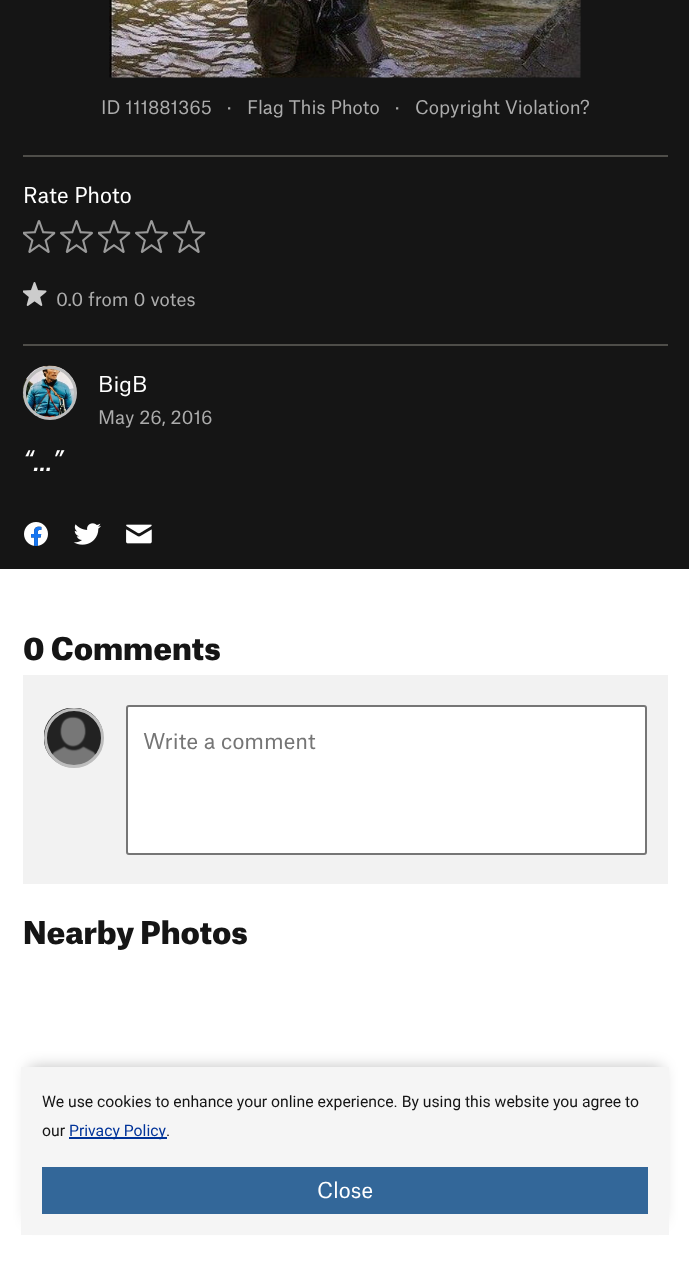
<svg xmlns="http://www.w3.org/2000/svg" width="689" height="1276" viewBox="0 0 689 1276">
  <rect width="100%" height="100%" fill="rgb(255,255,255)"/>
  <rect x="0" y="0" width="689" height="569" fill="rgb(21,21,21)"/>
  <image x="109" y="0" width="472" height="78" href="pic1.png"/>
  <g font-family="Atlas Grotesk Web" font-size="18" fill="rgb(172,172,172)">
    <text x="101" y="114">ID 111881365</text>
    <text x="227" y="114">·</text>
    <text x="247" y="114">Flag This Photo</text>
    <text x="395" y="114">·</text>
    <text x="415" y="114">Copyright Violation?</text>
  </g>
  <rect x="23" y="155" width="645" height="2" fill="rgb(78,77,73)"/>
  <text x="23" y="203" font-family="Atlas Grotesk Web" font-size="21" fill="rgb(255,255,255)">Rate Photo</text>
  <image x="23" y="220" width="33" height="33" href="pic2.png"/>
  <image x="60" y="220" width="33" height="33" href="pic3.png"/>
  <image x="98" y="220" width="33" height="33" href="pic2.png"/>
  <image x="135" y="220" width="33" height="33" href="pic3.png"/>
  <image x="173" y="220" width="33" height="33" href="pic2.png"/>
  <image x="23" y="282" width="24" height="24" href="pic4.png"/>
  <text x="56" y="306" font-family="Atlas Grotesk Web" font-size="18" fill="rgb(172,172,172)">0.0 from 0 votes</text>
  <rect x="23" y="344" width="645" height="2" fill="rgb(78,77,73)"/>
  <image x="22" y="365" width="55" height="55" href="pic5.png"/>
  <circle cx="50" cy="393" r="25.5" fill="none" stroke="rgb(189,189,189)" stroke-width="3"/>
  <text x="98" y="392" font-family="Atlas Grotesk Web" font-size="21" fill="rgb(255,255,255)">BigB</text>
  <text x="98" y="424" font-family="Atlas Grotesk Web" font-size="18" fill="rgb(172,172,172)">May 26, 2016</text>
  <text x="23" y="471" font-family="Atlas Grotesk Web" font-size="27" font-style="italic" fill="rgb(255,255,255)">“...”</text>
  <image x="24" y="522" width="24" height="24" href="pic6.png"/>
  <image x="73" y="523" width="28" height="22" href="pic7.png"/>
  <image x="126" y="524" width="26" height="20" href="pic8.png"/>
  <text x="23" y="660" font-family="Atlas Grotesk Web" font-size="30" font-weight="900" fill="rgb(21,21,21)">0 Comments</text>
  <rect x="23" y="675" width="645" height="209" fill="rgb(242,242,242)"/>
  <image x="44" y="708" width="60" height="60" href="pic9.png"/>
  <circle cx="74" cy="738" r="28.5" fill="none" stroke="rgb(189,189,189)" stroke-width="3"/>
  <rect x="127" y="706" width="519" height="148" rx="2" fill="rgb(255,255,255)" stroke="rgb(118,118,118)" stroke-width="2"/>
  <text x="143" y="749" font-family="Atlas Grotesk Web" font-size="21" fill="rgb(117,117,117)">Write a comment</text>
  <text x="23" y="944" font-family="Atlas Grotesk Web" font-size="30" font-weight="900" fill="rgb(21,21,21)">Nearby Photos</text>
  <rect x="29" y="1067" width="633" height="153" fill="rgba(0,0,0,0.25)" filter="blur(7.5px)"/>
  <rect x="21" y="1067" width="648" height="168" fill="rgb(245,245,245)"/>
  <g font-family="Roboto" font-size="15.75" fill="rgb(21,21,21)">
    <text>
      <tspan x="42" y="1107">We use cookies to enhance your online experience. By using this website you agree to</tspan>
      <tspan x="42" y="1136">our</tspan>
    </text>
  </g>
  <rect x="69" y="1137" width="98" height="2" fill="rgb(0,51,153)"/>
  <text x="69" y="1136" font-family="Roboto" font-size="15.75" fill="rgb(0,51,153)">Privacy Policy</text>
  <text x="166" y="1136" font-family="Roboto" font-size="15.75" fill="rgb(21,21,21)">.</text>
  <rect x="42" y="1167" width="606" height="47" fill="rgb(51,103,153)"/>
  <text x="317" y="1198" font-family="Atlas Grotesk Web" font-size="21" fill="rgb(255,255,255)">Close</text>
</svg>
